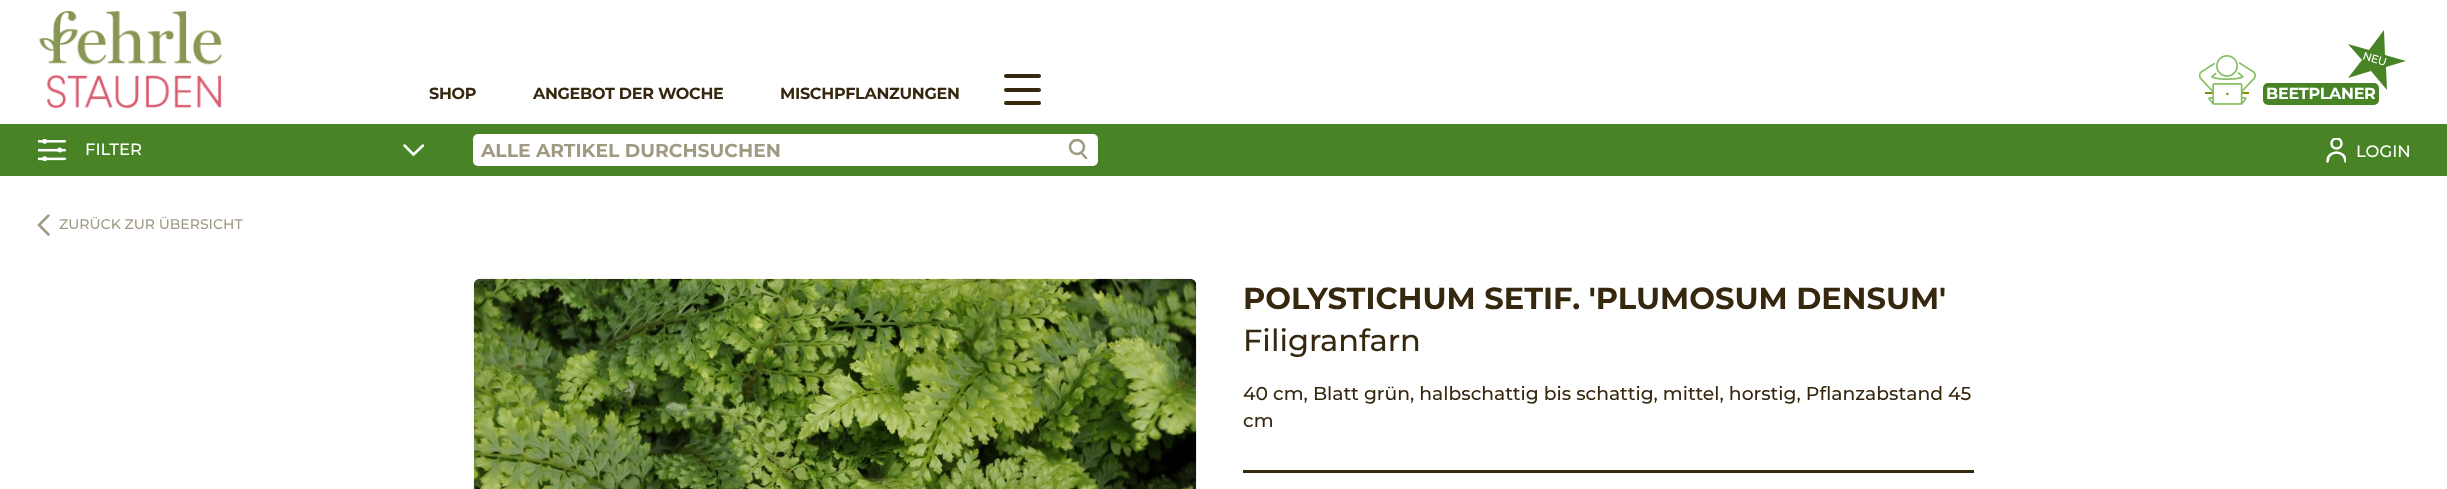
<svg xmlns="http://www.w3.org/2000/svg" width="2447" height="489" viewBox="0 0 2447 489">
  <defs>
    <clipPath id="clip1"><rect x="1069" y="139" width="19" height="21"/></clipPath>
    <clipPath id="clip2"><rect x="2326" y="138" width="20" height="25"/></clipPath>
  </defs>
  <rect width="100%" height="100%" fill="rgb(255,255,255)"/>
  <image x="39" y="10" width="183" height="99" href="pic1.png"/>
  <g font-family="'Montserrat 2'" font-size="16" font-weight="100" letter-spacing="-0.3" fill="rgb(54,39,15)">
    <text x="429" y="99">SHOP</text>
    <text x="533" y="99">ANGEBOT DER WOCHE</text>
    <text x="780" y="99">MISCHPFLANZUNGEN</text>
  </g>
  <rect x="1004" y="74" width="37" height="4" rx="2" fill="rgb(54,39,15)"/>
  <rect x="1004" y="88" width="37" height="4" rx="2" fill="rgb(54,39,15)"/>
  <rect x="1004" y="101" width="37" height="4" rx="2" fill="rgb(54,39,15)"/>
  <image x="2199" y="55" width="57" height="50" href="pic2.png"/>
  <rect x="2263" y="83" width="116" height="22" rx="5" fill="rgb(72,131,38)"/>
  <text x="2266" y="99" font-family="'Montserrat 2'" font-size="16" font-weight="100" letter-spacing="-0.3" fill="rgb(255,255,255)">BEETPLANER</text>
  <path d="M2384 30L2385 55L2406 61L2386 67L2387 90L2371 71L2348 78L2362 60L2348 44L2369 50Z" fill="rgb(72,131,38)"/>
  <text x="2362" y="59" transform="rotate(17 2362 59)" font-family="Montserrat" font-size="11" font-weight="100" letter-spacing="-0.3" fill="rgb(255,255,255)">NEU</text>
  <rect x="0" y="124" width="2447" height="52" fill="rgb(72,131,38)"/>
  <image x="38" y="139" width="28" height="22" href="pic3.png"/>
  <text x="85" y="155" font-family="Montserrat" font-size="16.5" font-weight="100" fill="rgb(255,255,255)">FILTER</text>
  <path d="M404.5 145.5L413.5 154.5L423 145.5" fill="none" stroke="rgb(255,255,255)" stroke-width="2.5" stroke-linecap="round"/>
  <rect x="473" y="134" width="625" height="32" rx="5" fill="rgb(255,255,255)"/>
  <text x="481" y="157" font-family="'Montserrat 2'" font-size="18.75" font-weight="100" fill="rgb(161,154,131)">ALLE ARTIKEL DURCHSUCHEN</text>
  <path d="M1081 152.5L1086 158" fill="none" stroke="rgb(159,154,132)" stroke-width="2.5" stroke-linecap="round"/>
  <circle cx="1077" cy="147" r="8" fill="rgb(255,255,255)"/>
  <g clip-path="url(#clip1)">
    <circle cx="1077" cy="147" r="7" fill="none" stroke="rgb(159,154,132)" stroke-width="2.5"/>
  </g>
  <g clip-path="url(#clip2)">
    <circle cx="2336.5" cy="143.5" r="5" fill="none" stroke="rgb(255,255,255)" stroke-width="2.5"/>
    <path d="M2327.5 161.5C2327.5 149.5 2345.5 149.5 2345.5 161.5" fill="none" stroke="rgb(255,255,255)" stroke-width="2.5" stroke-linecap="round" stroke-linejoin="round"/>
  </g>
  <text x="2356" y="157" font-family="Montserrat" font-size="16.5" font-weight="100" fill="rgb(255,255,255)">LOGIN</text>
  <path d="M48.5 234.5L39 225L48.5 215.5" fill="none" stroke="rgb(161,154,131)" stroke-width="2.5" stroke-linecap="round"/>
  <text x="59" y="229" font-family="Montserrat" font-size="14" font-weight="100" fill="rgb(161,154,131)">ZURÜCK ZUR ÜBERSICHT</text>
  <image x="473" y="278" width="724" height="211" href="pic4.png"/>
  <text x="1243" y="309" font-family="'Montserrat 2'" font-size="30.5" font-weight="100" fill="rgb(54,39,15)">POLYSTICHUM SETIF. 'PLUMOSUM DENSUM'</text>
  <text x="1243" y="351" font-family="Montserrat" font-size="30.5" font-weight="100" fill="rgb(54,39,15)">Filigranfarn</text>
  <g font-family="Montserrat" font-size="18.75" font-weight="100" fill="rgb(54,39,15)">
    <text>
      <tspan x="1243" y="400">40 cm, Blatt grün, halbschattig bis schattig, mittel, horstig, Pflanzabstand 45</tspan>
      <tspan x="1243" y="427">cm</tspan>
    </text>
  </g>
  <rect x="1243" y="470" width="731" height="3" fill="rgb(54,39,15)"/>
</svg>
